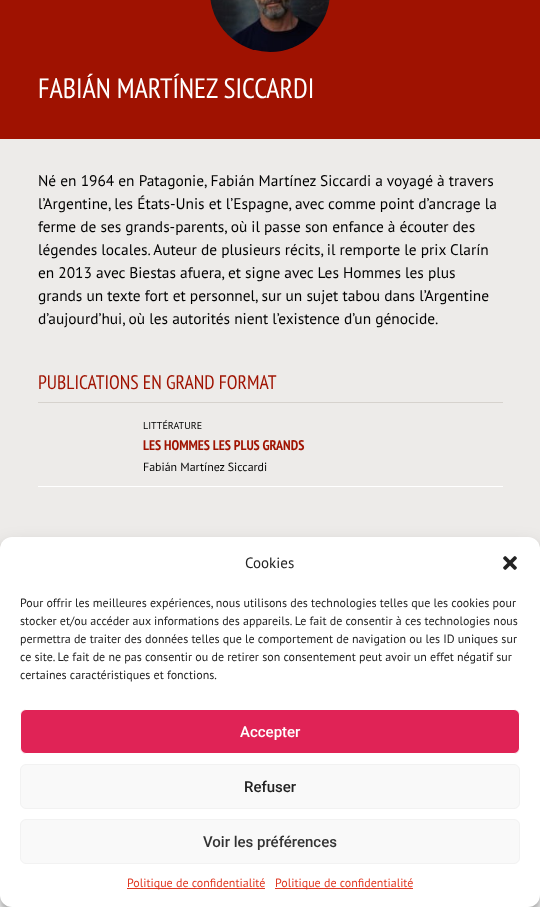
<svg xmlns="http://www.w3.org/2000/svg" width="540" height="907" viewBox="0 0 540 907">
  <rect width="100%" height="100%" fill="rgb(237,235,233)"/>
  <rect x="0" y="0" width="540" height="139" fill="rgb(159,18,1)"/>
  <image x="210" y="0" width="120" height="52" href="pic1.png"/>
  <text x="38" y="98" font-family="PT Sans Narrow" font-size="28" fill="rgb(255,255,255)">FABIÁN MARTÍNEZ SICCARDI</text>
  <g font-family="PT Sans" font-size="15.4" fill="rgb(0,0,0)">
    <text>
      <tspan x="38" y="186">Né en 1964 en Patagonie, Fabián Martínez Siccardi a voyagé à travers</tspan>
      <tspan x="38" y="209">l’Argentine, les États-Unis et l’Espagne, avec comme point d’ancrage la</tspan>
      <tspan x="38" y="232">ferme de ses grands-parents, où il passe son enfance à écouter des</tspan>
      <tspan x="38" y="255">légendes locales. Auteur de plusieurs récits, il remporte le prix Clarín</tspan>
      <tspan x="38" y="278">en 2013 avec Biestas afuera, et signe avec Les Hommes les plus</tspan>
      <tspan x="38" y="301">grands un texte fort et personnel, sur un sujet tabou dans l’Argentine</tspan>
      <tspan x="38" y="324">d’aujourd’hui, où les autorités nient l’existence d’un génocide.</tspan>
    </text>
  </g>
  <rect x="38" y="402" width="465" height="1" fill="rgb(214,210,205)"/>
  <text x="38" y="389" font-family="PT Sans Narrow" font-size="19.6" fill="rgb(159,18,1)">PUBLICATIONS EN GRAND FORMAT</text>
  <rect x="38" y="486" width="465" height="1" fill="rgb(255,255,255)"/>
  <text x="143" y="429" font-family="PT Sans" font-size="10" fill="rgb(0,0,0)">LITTÉRATURE</text>
  <text x="143" y="450" font-family="PT Sans Narrow" font-size="14" font-weight="bold" fill="rgb(159,18,1)">LES HOMMES LES PLUS GRANDS</text>
  <text x="143" y="471" font-family="PT Sans" font-size="11.9" fill="rgb(0,0,0)">Fabián Martínez Siccardi</text>
  <rect x="0" y="895" width="540" height="12" fill="rgb(255,255,255)"/>
  <rect x="0" y="543" width="540" height="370" rx="12" fill="rgba(0,0,0,0.23)" filter="blur(3px)"/>
  <rect x="0" y="547" width="540" height="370" rx="12" fill="rgba(0,0,0,0.19)" filter="blur(10px)"/>
  <rect x="0" y="537" width="540" height="370" rx="12" fill="rgb(255,255,255)"/>
  <text x="245" y="568" font-family="PT Sans" font-size="15" fill="rgb(34,34,34)">Cookies</text>
  <image x="503" y="556" width="14" height="14" href="pic2.png"/>
  <g font-family="PT Sans" font-size="12" fill="rgb(34,34,34)">
    <text>
      <tspan x="20" y="607">Pour offrir les meilleures expériences, nous utilisons des technologies telles que les cookies pour</tspan>
      <tspan x="20" y="625">stocker et/ou accéder aux informations des appareils. Le fait de consentir à ces technologies nous</tspan>
      <tspan x="20" y="643">permettra de traiter des données telles que le comportement de navigation ou les ID uniques sur</tspan>
      <tspan x="20" y="661">ce site. Le fait de ne pas consentir ou de retirer son consentement peut avoir un effet négatif sur</tspan>
      <tspan x="20" y="679">certaines caractéristiques et fonctions.</tspan>
    </text>
  </g>
  <rect x="20.5" y="709.5" width="499" height="44" rx="5.5" fill="rgb(224,35,86)" stroke="rgb(255,255,255)"/>
  <text x="240" y="737" font-family="Roboto" font-size="15" font-weight="500" fill="rgb(255,255,255)">Accepter</text>
  <rect x="20.5" y="764.5" width="499" height="44" rx="5.5" fill="rgb(249,249,249)" stroke="rgb(242,242,242)"/>
  <text x="244" y="792" font-family="Roboto" font-size="15" font-weight="500" fill="rgb(34,34,34)">Refuser</text>
  <rect x="20.5" y="819.5" width="499" height="44" rx="5.5" fill="rgb(249,249,249)" stroke="rgb(242,242,242)"/>
  <text x="203" y="847" font-family="Roboto" font-size="15" font-weight="500" fill="rgb(51,51,51)">Voir les préférences</text>
  <rect x="127" y="888" width="138" height="1" fill="rgb(224,57,35)"/>
  <text x="127" y="887" font-family="PT Sans" font-size="12" fill="rgb(224,57,35)">Politique de confidentialité</text>
  <rect x="275" y="888" width="138" height="1" fill="rgb(224,57,35)"/>
  <text x="275" y="887" font-family="PT Sans" font-size="12" fill="rgb(224,57,35)">Politique de confidentialité</text>
</svg>
